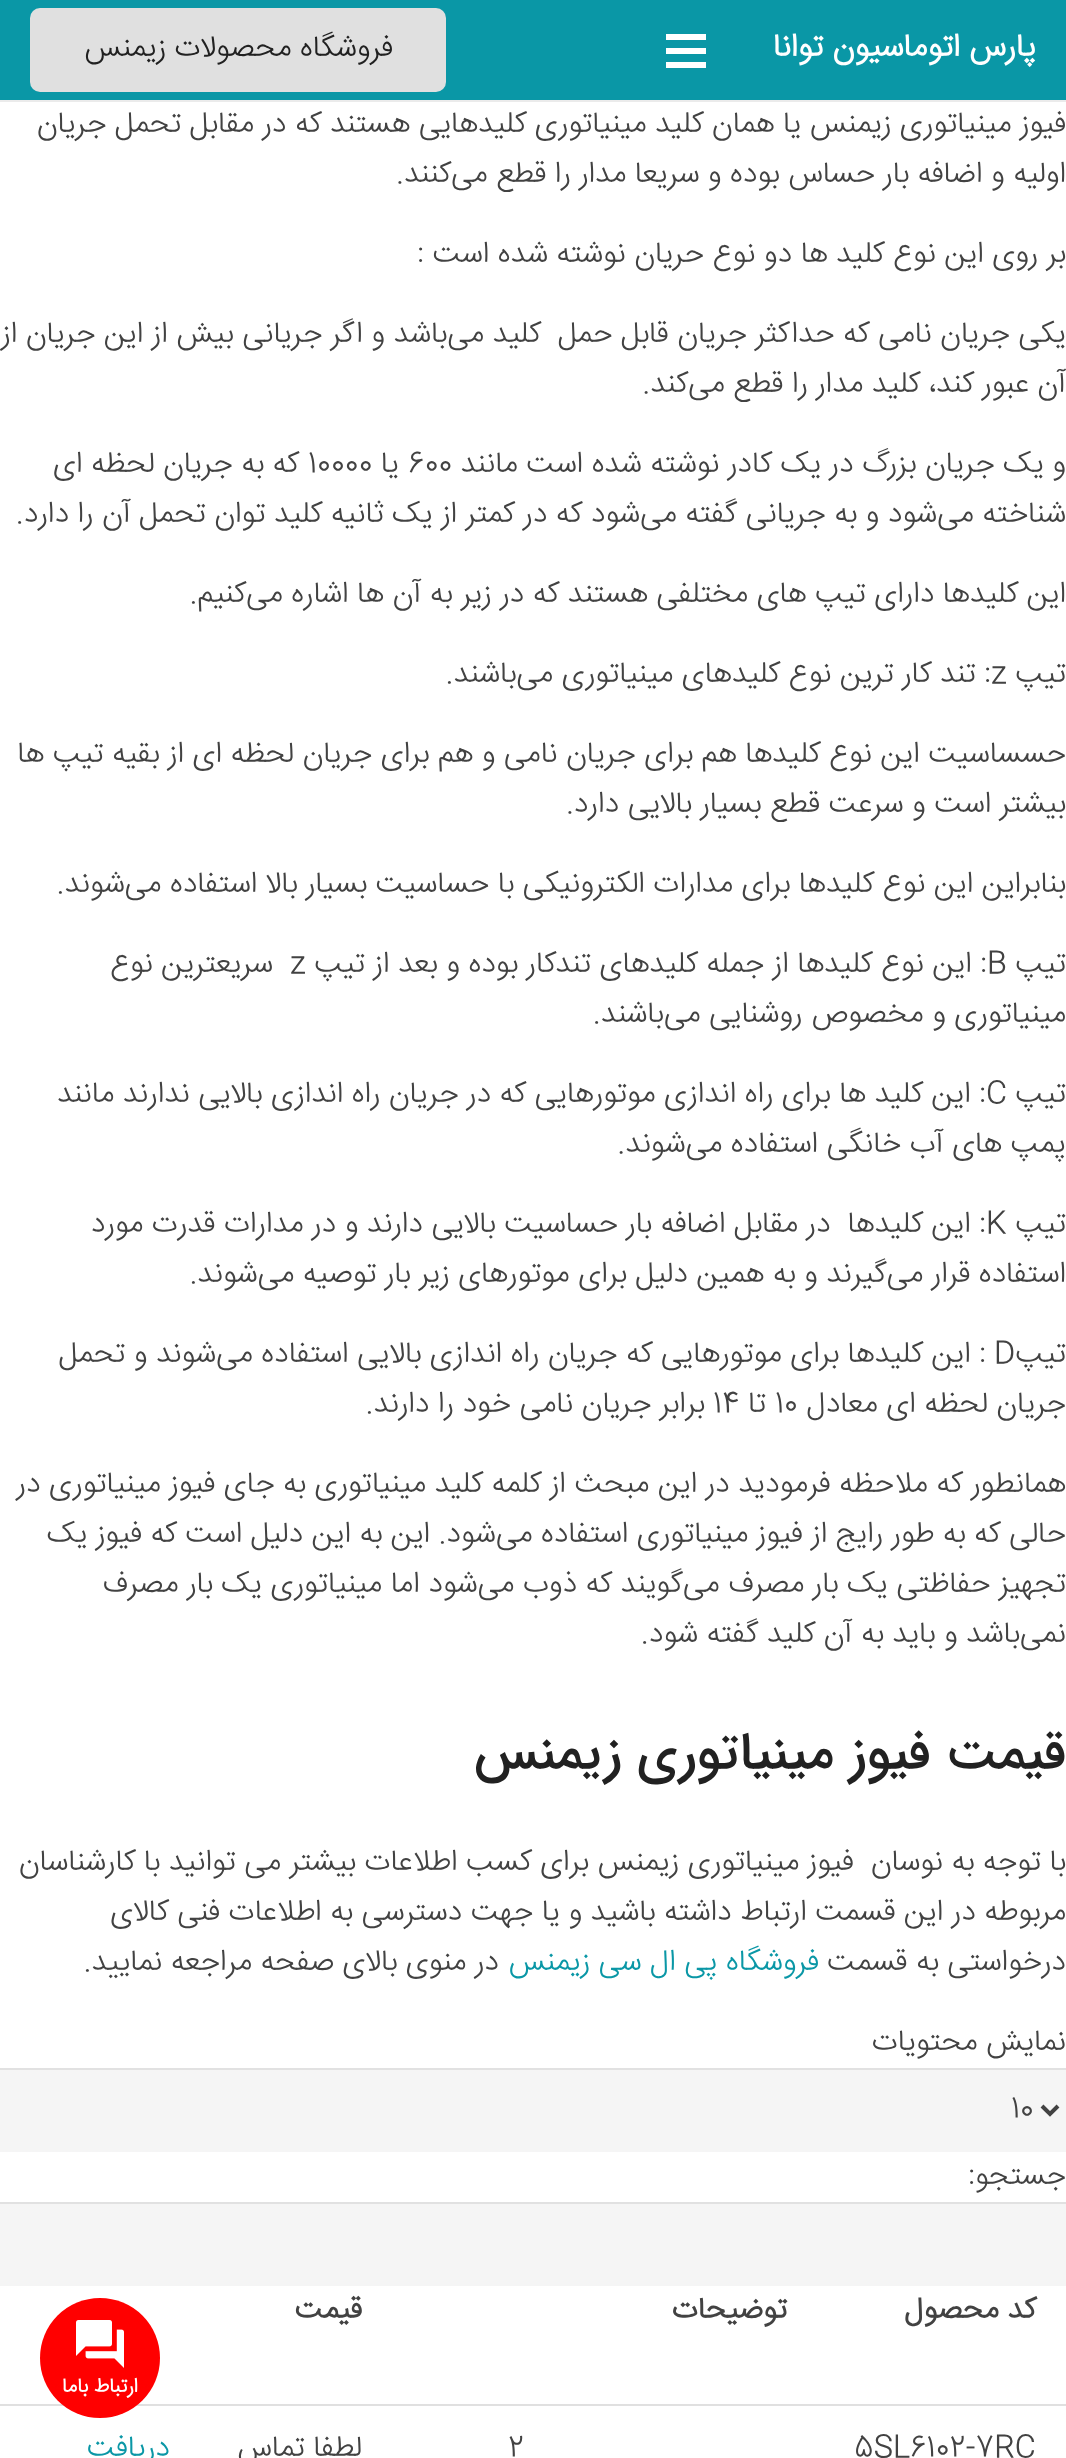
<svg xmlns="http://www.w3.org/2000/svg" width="1066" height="2458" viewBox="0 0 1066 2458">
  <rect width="100%" height="100%" fill="rgb(255,255,255)"/>
  <rect x="0" y="100" width="1066" height="2" fill="rgb(235,235,235)"/>
  <rect x="0" y="0" width="1066" height="100" fill="rgb(10,151,166)"/>
  <text x="1036" y="56" font-family="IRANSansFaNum" font-size="32" font-weight="bold" direction="rtl" fill="rgb(255,255,255)">پارس اتوماسیون توانا</text>
  <rect x="666" y="48" width="40" height="6" fill="rgb(255,255,255)"/>
  <rect x="666" y="34" width="40" height="6" fill="rgb(255,255,255)"/>
  <rect x="666" y="62" width="40" height="6" fill="rgb(255,255,255)"/>
  <rect x="30" y="8" width="416" height="84" rx="10" fill="rgb(224,224,224)"/>
  <text x="393" y="56" font-family="IRANSansFaNum" font-size="30" font-weight="300" direction="rtl" fill="rgb(33,33,33)">فروشگاه محصولات زیمنس</text>
  <g font-family="IRANSansFaNum" font-size="30" font-weight="300" direction="rtl" fill="rgb(66,66,66)">
    <text>
      <tspan x="1066" y="132">فیوز مینیاتوری زیمنس یا همان کلید مینیاتوری کلیدهایی هستند که در مقابل تحمل جریان</tspan>
      <tspan x="1066" y="182">اولیه و اضافه بار حساس بوده و سریعا مدار را قطع می‌کنند.</tspan>
    </text>
    <text x="1066" y="262">بر روی این نوع کلید ها دو نوع حریان نوشته شده است :</text>
    <text xml:space="preserve"><tspan x="1066" y="342">یکی جریان نامی که حداکثر جریان قابل حمل  کلید می‌باشد و اگر جریانی بیش از این جریان از</tspan><tspan x="1066" y="392">آن عبور کند، کلید مدار را قطع می‌کند.</tspan></text>
    <text x="1066" y="472">و یک جریان بزرگ در یک کادر نوشته شده است مانند</text>
  </g>
  <text x="408" y="472" font-family="IRANSansFaNum" font-size="30" font-weight="300" fill="rgb(66,66,66)">600</text>
  <text x="399" y="472" font-family="IRANSansFaNum" font-size="30" font-weight="300" direction="rtl" fill="rgb(66,66,66)">یا</text>
  <text x="308" y="472" font-family="IRANSansFaNum" font-size="30" font-weight="300" fill="rgb(66,66,66)">10000</text>
  <g font-family="IRANSansFaNum" font-size="30" font-weight="300" direction="rtl" fill="rgb(66,66,66)">
    <text x="299" y="472">که به جریان لحظه ای</text>
    <text x="1066" y="522">شناخته می‌شود و به جریانی گفته می‌شود که در کمتر از یک ثانیه کلید توان تحمل آن را دارد.</text>
    <text x="1066" y="602">این کلیدها دارای تیپ های مختلفی هستند که در زیر به آن ها اشاره می‌کنیم.</text>
    <text x="1066" y="682">تیپ</text>
  </g>
  <text x="991" y="682" font-family="IRANSansFaNum" font-size="30" font-weight="300" fill="rgb(66,66,66)">z</text>
  <g font-family="IRANSansFaNum" font-size="30" font-weight="300" direction="rtl" fill="rgb(66,66,66)">
    <text x="991" y="682">: تند کار ترین نوع کلیدهای مینیاتوری می‌باشند.</text>
    <text>
      <tspan x="1066" y="762">حسساسیت این نوع کلیدها هم برای جریان نامی و هم برای جریان لحظه ای از بقیه تیپ ها</tspan>
      <tspan x="1066" y="812">بیشتر است و سرعت قطع بسیار بالایی دارد.</tspan>
    </text>
    <text x="1066" y="892">بنابراین این نوع کلیدها برای مدارات الکترونیکی با حساسیت بسیار بالا استفاده می‌شوند.</text>
    <text x="1066" y="972">تیپ</text>
  </g>
  <text x="987" y="972" font-family="IRANSansFaNum" font-size="30" font-weight="300" fill="rgb(66,66,66)">B</text>
  <text x="987" y="972" font-family="IRANSansFaNum" font-size="30" font-weight="300" direction="rtl" fill="rgb(66,66,66)">: این نوع کلیدها از جمله کلیدهای تندکار بوده و بعد از تیپ</text>
  <text x="290" y="972" font-family="IRANSansFaNum" font-size="30" font-weight="300" fill="rgb(66,66,66)">z</text>
  <g font-family="IRANSansFaNum" font-size="30" font-weight="300" direction="rtl" fill="rgb(66,66,66)">
    <text x="273" y="972">سریعترین نوع</text>
    <text x="1066" y="1022">مینیاتوری و مخصوص روشنایی می‌باشند.</text>
    <text x="1066" y="1102">تیپ</text>
  </g>
  <text x="986" y="1102" font-family="IRANSansFaNum" font-size="30" font-weight="300" fill="rgb(66,66,66)">C</text>
  <g font-family="IRANSansFaNum" font-size="30" font-weight="300" direction="rtl" fill="rgb(66,66,66)">
    <text x="986" y="1102">: این کلید ها برای راه اندازی موتورهایی که در جریان راه اندازی بالایی ندارند مانند</text>
    <text x="1066" y="1152">پمپ های آب خانگی استفاده می‌شوند.</text>
    <text x="1066" y="1232">تیپ</text>
  </g>
  <text x="986" y="1232" font-family="IRANSansFaNum" font-size="30" font-weight="300" fill="rgb(66,66,66)">K</text>
  <g font-family="IRANSansFaNum" font-size="30" font-weight="300" direction="rtl" fill="rgb(66,66,66)">
    <text x="986" y="1232" xml:space="preserve">: این کلیدها  در مقابل اضافه بار حساسیت بالایی دارند و در مدارات قدرت مورد</text>
    <text x="1066" y="1282">استفاده قرار می‌گیرند و به همین دلیل برای موتورهای زیر بار توصیه می‌شوند.</text>
    <text x="1066" y="1362">تیپ</text>
  </g>
  <text x="994" y="1362" font-family="IRANSansFaNum" font-size="30" font-weight="300" fill="rgb(66,66,66)">D</text>
  <g font-family="IRANSansFaNum" font-size="30" font-weight="300" direction="rtl" fill="rgb(66,66,66)">
    <text x="986" y="1362">: این کلیدها برای موتورهایی که جریان راه اندازی بالایی استفاده می‌شوند و تحمل</text>
    <text x="1066" y="1412">جریان لحظه ای معادل</text>
  </g>
  <text x="775" y="1412" font-family="IRANSansFaNum" font-size="30" font-weight="300" fill="rgb(66,66,66)">10</text>
  <text x="766" y="1412" font-family="IRANSansFaNum" font-size="30" font-weight="300" direction="rtl" fill="rgb(66,66,66)">تا</text>
  <text x="713" y="1412" font-family="IRANSansFaNum" font-size="30" font-weight="300" fill="rgb(66,66,66)">14</text>
  <g font-family="IRANSansFaNum" font-size="30" font-weight="300" direction="rtl" fill="rgb(66,66,66)">
    <text x="705" y="1412">برابر جریان نامی خود را دارند.</text>
    <text>
      <tspan x="1066" y="1492">همانطور که ملاحظه فرمودید در این مبحث از کلمه کلید مینیاتوری به جای فیوز مینیاتوری در</tspan>
      <tspan x="1066" y="1542">حالی که به طور رایج از فیوز مینیاتوری استفاده می‌شود. این به این دلیل است که فیوز یک</tspan>
      <tspan x="1066" y="1592">تجهیز حفاظتی یک بار مصرف می‌گویند که ذوب می‌شود اما مینیاتوری یک بار مصرف</tspan>
      <tspan x="1066" y="1642">نمی‌باشد و باید به آن کلید گفته شود.</tspan>
    </text>
  </g>
  <text x="1066" y="1768" font-family="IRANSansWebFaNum" font-size="52" font-weight="500" direction="rtl" fill="rgb(33,33,33)">قیمت فیوز مینیاتوری زیمنس</text>
  <g font-family="IRANSansFaNum" font-size="30" font-weight="300" direction="rtl" fill="rgb(66,66,66)">
    <text xml:space="preserve"><tspan x="1066" y="1870">با توجه به نوسان  فیوز مینیاتوری زیمنس برای کسب اطلاعات بیشتر می توانید با کارشناسان</tspan><tspan x="1066" y="1920">مربوطه در این قسمت ارتباط داشته باشید و یا جهت دسترسی به اطلاعات فنی کالای</tspan><tspan x="1066" y="1970">درخواستی به قسمت</tspan></text>
  </g>
  <text x="819" y="1970" font-family="IRANSansFaNum" font-size="30" font-weight="300" direction="rtl" fill="rgb(10,151,166)">فروشگاه پی ال سی زیمنس</text>
  <g font-family="IRANSansFaNum" font-size="30" font-weight="300" direction="rtl" fill="rgb(66,66,66)">
    <text x="499" y="1970">در منوی بالای صفحه مراجعه نمایید.</text>
    <text x="1066" y="2050">نمایش محتویات</text>
  </g>
  <rect x="0" y="2070" width="1066" height="82" fill="rgb(245,245,245)"/>
  <rect x="0" y="2068" width="1066" height="2" fill="rgb(225,225,225)"/>
  <path d="M1042 2106L1050 2114L1058 2106" fill="none" stroke="rgb(66,66,66)" stroke-width="4"/>
  <text x="1011" y="2117" font-family="IRANSansFaNum" font-size="30" font-weight="300" fill="rgb(66,66,66)">10</text>
  <text x="1066" y="2184" font-family="IRANSansFaNum" font-size="30" font-weight="300" direction="rtl" fill="rgb(66,66,66)">جستجو:</text>
  <rect x="0" y="2204" width="1066" height="82" fill="rgb(245,245,245)"/>
  <rect x="0" y="2202" width="1066" height="2" fill="rgb(225,225,225)"/>
  <g font-family="IRANSansFaNum" font-size="30" font-weight="bold" direction="rtl" fill="rgb(66,66,66)">
    <text x="1036" y="2318">کد محصول</text>
    <text x="787" y="2318">توضیحات</text>
    <text x="362" y="2318">قیمت</text>
  </g>
  <rect x="0" y="2404" width="1066" height="2" fill="rgb(224,224,224)"/>
  <g font-family="IRANSansFaNum" font-size="30" font-weight="300" fill="rgb(66,66,66)">
    <text x="854" y="2456">5SL6102-7RC</text>
    <text x="508" y="2456">2</text>
  </g>
  <text x="362" y="2456" font-family="IRANSansFaNum" font-size="30" font-weight="300" direction="rtl" fill="rgb(66,66,66)">لطفا تماس</text>
  <text x="170" y="2456" font-family="IRANSansFaNum" font-size="30" font-weight="300" direction="rtl" fill="rgb(10,151,166)">دریافت</text>
  <circle cx="100" cy="2358" r="60" fill="rgb(255,0,0)"/>
  <image x="76" y="2320" width="48" height="48" href="pic1.png"/>
  <text x="138" y="2392" font-family="IRANSansFaNum" font-size="20" font-weight="bold" direction="rtl" fill="rgb(255,255,255)">ارتباط باما</text>
</svg>
